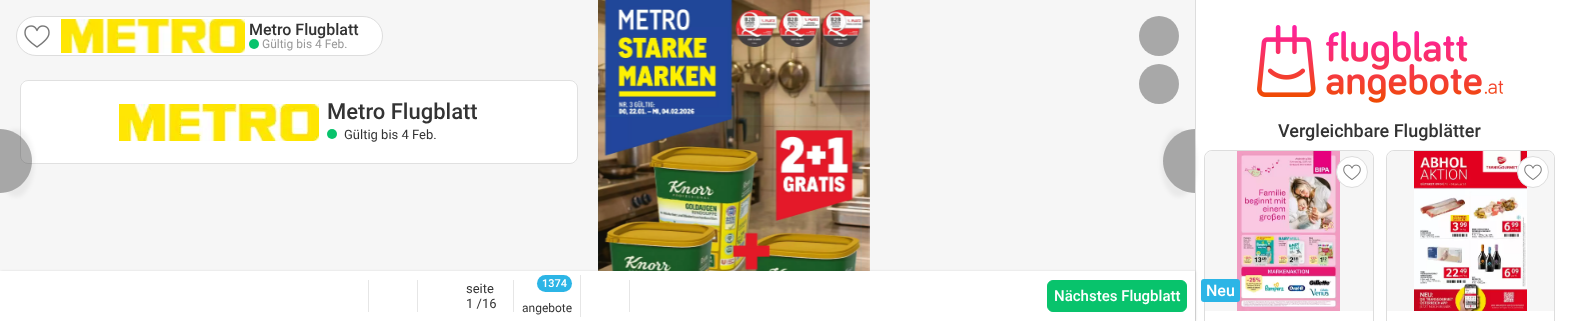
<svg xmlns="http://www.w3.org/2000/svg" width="1578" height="321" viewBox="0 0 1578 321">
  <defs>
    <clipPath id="clip1"><path d="M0 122H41V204H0ZM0 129C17.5 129 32 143.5 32 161C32 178.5 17.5 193 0 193Z" clip-rule="evenodd"/></clipPath>
    <clipPath id="clip2"><path d="M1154 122H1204V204H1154ZM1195 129V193C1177.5 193 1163 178.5 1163 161C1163 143.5 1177.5 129 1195 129Z" clip-rule="evenodd"/></clipPath>
  </defs>
  <rect width="100%" height="100%" fill="rgb(255,255,255)"/>
  <rect x="868" y="0" width="327" height="271" fill="rgb(246,246,246)"/>
  <image x="868" y="0" width="2" height="271" href="pic5.png"/>
  <image x="598" y="0" width="272" height="271" href="pic4.png"/>
  <rect x="598" y="116" width="263" height="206" fill="none" stroke="rgba(44,181,230,0.04)" stroke-width="2"/>
  <rect x="0" y="0" width="598" height="271" fill="rgb(246,246,246)"/>
  <rect x="16.5" y="16.5" width="366" height="39" rx="19.5" fill="rgb(255,255,255)" stroke="rgb(221,221,221)"/>
  <image x="24" y="25" width="26" height="23" href="pic1.png"/>
  <image x="61" y="19" width="184" height="34" href="pic2.png"/>
  <text x="249" y="35" font-family="Roboto" font-size="16" font-weight="500" fill="rgb(51,51,51)">Metro Flugblatt</text>
  <circle cx="254" cy="44" r="5" fill="rgb(8,195,108)"/>
  <text x="262" y="48" font-family="Roboto" font-size="12" fill="rgb(153,153,153)">Gültig bis 4 Feb.</text>
  <circle cx="1159" cy="36" r="20" fill="rgb(168,168,168)"/>
  <circle cx="1159" cy="84" r="20" fill="rgb(168,168,168)"/>
  <rect x="20" y="80" width="558" height="84" rx="8" fill="rgb(255,255,255)"/>
  <rect x="20.5" y="80.5" width="557" height="83" rx="7.5" fill="none" stroke="rgba(0,0,0,0.12)"/>
  <g clip-path="url(#clip1)">
    <rect x="-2" y="129" width="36" height="68" rx="34" fill="rgba(0,0,0,0.05)" filter="blur(2px)"/>
  </g>
  <path d="M0 129C17.5 129 32 143.5 32 161C32 178.5 17.5 193 0 193Z" fill="rgba(51,51,51,0.4)"/>
  <image x="119" y="104" width="200" height="37" href="pic3.png"/>
  <text x="327" y="119" font-family="Roboto" font-size="22" font-weight="500" fill="rgb(51,51,51)">Metro Flugblatt</text>
  <circle cx="332" cy="134" r="5" fill="rgb(8,195,108)"/>
  <text x="344" y="139" font-family="Roboto" font-size="13" fill="rgb(51,51,51)">Gültig bis 4 Feb.</text>
  <rect x="1195" y="0" width="1" height="321" fill="rgb(221,221,221)"/>
  <g clip-path="url(#clip2)">
    <rect x="1161" y="129" width="36" height="68" rx="34" fill="rgba(0,0,0,0.05)" filter="blur(2px)"/>
  </g>
  <path d="M1195 129V193C1177.5 193 1163 178.5 1163 161C1163 143.5 1177.5 129 1195 129Z" fill="rgba(51,51,51,0.4)"/>
  <rect x="1" y="271" width="1195" height="50" fill="rgba(0,0,0,0.1)" filter="blur(1px)"/>
  <rect x="0" y="271" width="1195" height="50" fill="rgb(255,255,255)"/>
  <rect x="368" y="280" width="1" height="32" fill="rgb(230,230,230)"/>
  <rect x="417" y="280" width="1" height="32" fill="rgb(230,230,230)"/>
  <rect x="513" y="280" width="1" height="32" fill="rgb(230,230,230)"/>
  <g font-family="Roboto" font-size="13" fill="rgb(51,51,51)">
    <text>
      <tspan x="466" y="293">seite</tspan>
      <tspan x="466" y="308">1 /16</tspan>
    </text>
  </g>
  <rect x="580" y="275" width="1" height="42" fill="rgb(230,230,230)"/>
  <rect x="537" y="275" width="35" height="17" rx="8.5" fill="rgb(44,181,230)"/>
  <text x="542" y="287" font-family="Roboto" font-size="11" font-weight="500" fill="rgb(255,255,255)">1374</text>
  <text x="522" y="312" font-family="Roboto" font-size="12" fill="rgb(51,51,51)">angebote</text>
  <rect x="629" y="280" width="1" height="32" fill="rgb(230,230,230)"/>
  <rect x="1047.5" y="280.5" width="139" height="31" rx="5.5" fill="rgb(8,195,108)" stroke="rgb(8,195,108)"/>
  <text x="1054" y="301" font-family="Roboto" font-size="15" font-weight="500" fill="rgb(255,255,255)">Nächstes Flugblatt</text>
  <image x="1257" y="25" width="247" height="78" href="pic6.png"/>
  <text x="1278" y="137" font-family="Roboto" font-size="18" font-weight="500" fill="rgb(51,51,51)">Vergleichbare Flugblätter</text>
  <rect x="1204.5" y="150.5" width="169" height="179" rx="7.5" fill="none" stroke="rgb(221,221,221)"/>
  <path d="M1213 151H1365C1369.5 151 1373 154.5 1373 159V311H1205V159C1205 154.5 1208.5 151 1213 151Z" fill="rgb(246,246,246)"/>
  <image x="1237" y="151" width="103" height="160" href="pic8.png"/>
  <circle cx="1352" cy="172" r="15.5" fill="rgb(255,255,255)" stroke="rgb(221,221,221)"/>
  <image x="1343" y="164" width="18" height="16" href="pic7.png"/>
  <rect x="1201" y="279" width="39" height="23" rx="3" fill="rgb(44,181,230)"/>
  <text x="1206" y="296" font-family="Roboto" font-size="16" font-weight="500" fill="rgb(255,255,255)">Neu</text>
  <rect x="1386.5" y="150.5" width="168" height="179" rx="7.5" fill="none" stroke="rgb(221,221,221)"/>
  <path d="M1395 151H1546C1550.5 151 1554 154.5 1554 159V311H1387V159C1387 154.5 1390.5 151 1395 151Z" fill="rgb(246,246,246)"/>
  <image x="1414" y="151" width="113" height="160" href="pic9.png"/>
  <circle cx="1533" cy="172" r="15.5" fill="rgb(255,255,255)" stroke="rgb(221,221,221)"/>
  <image x="1524" y="164" width="18" height="16" href="pic7.png"/>
</svg>
